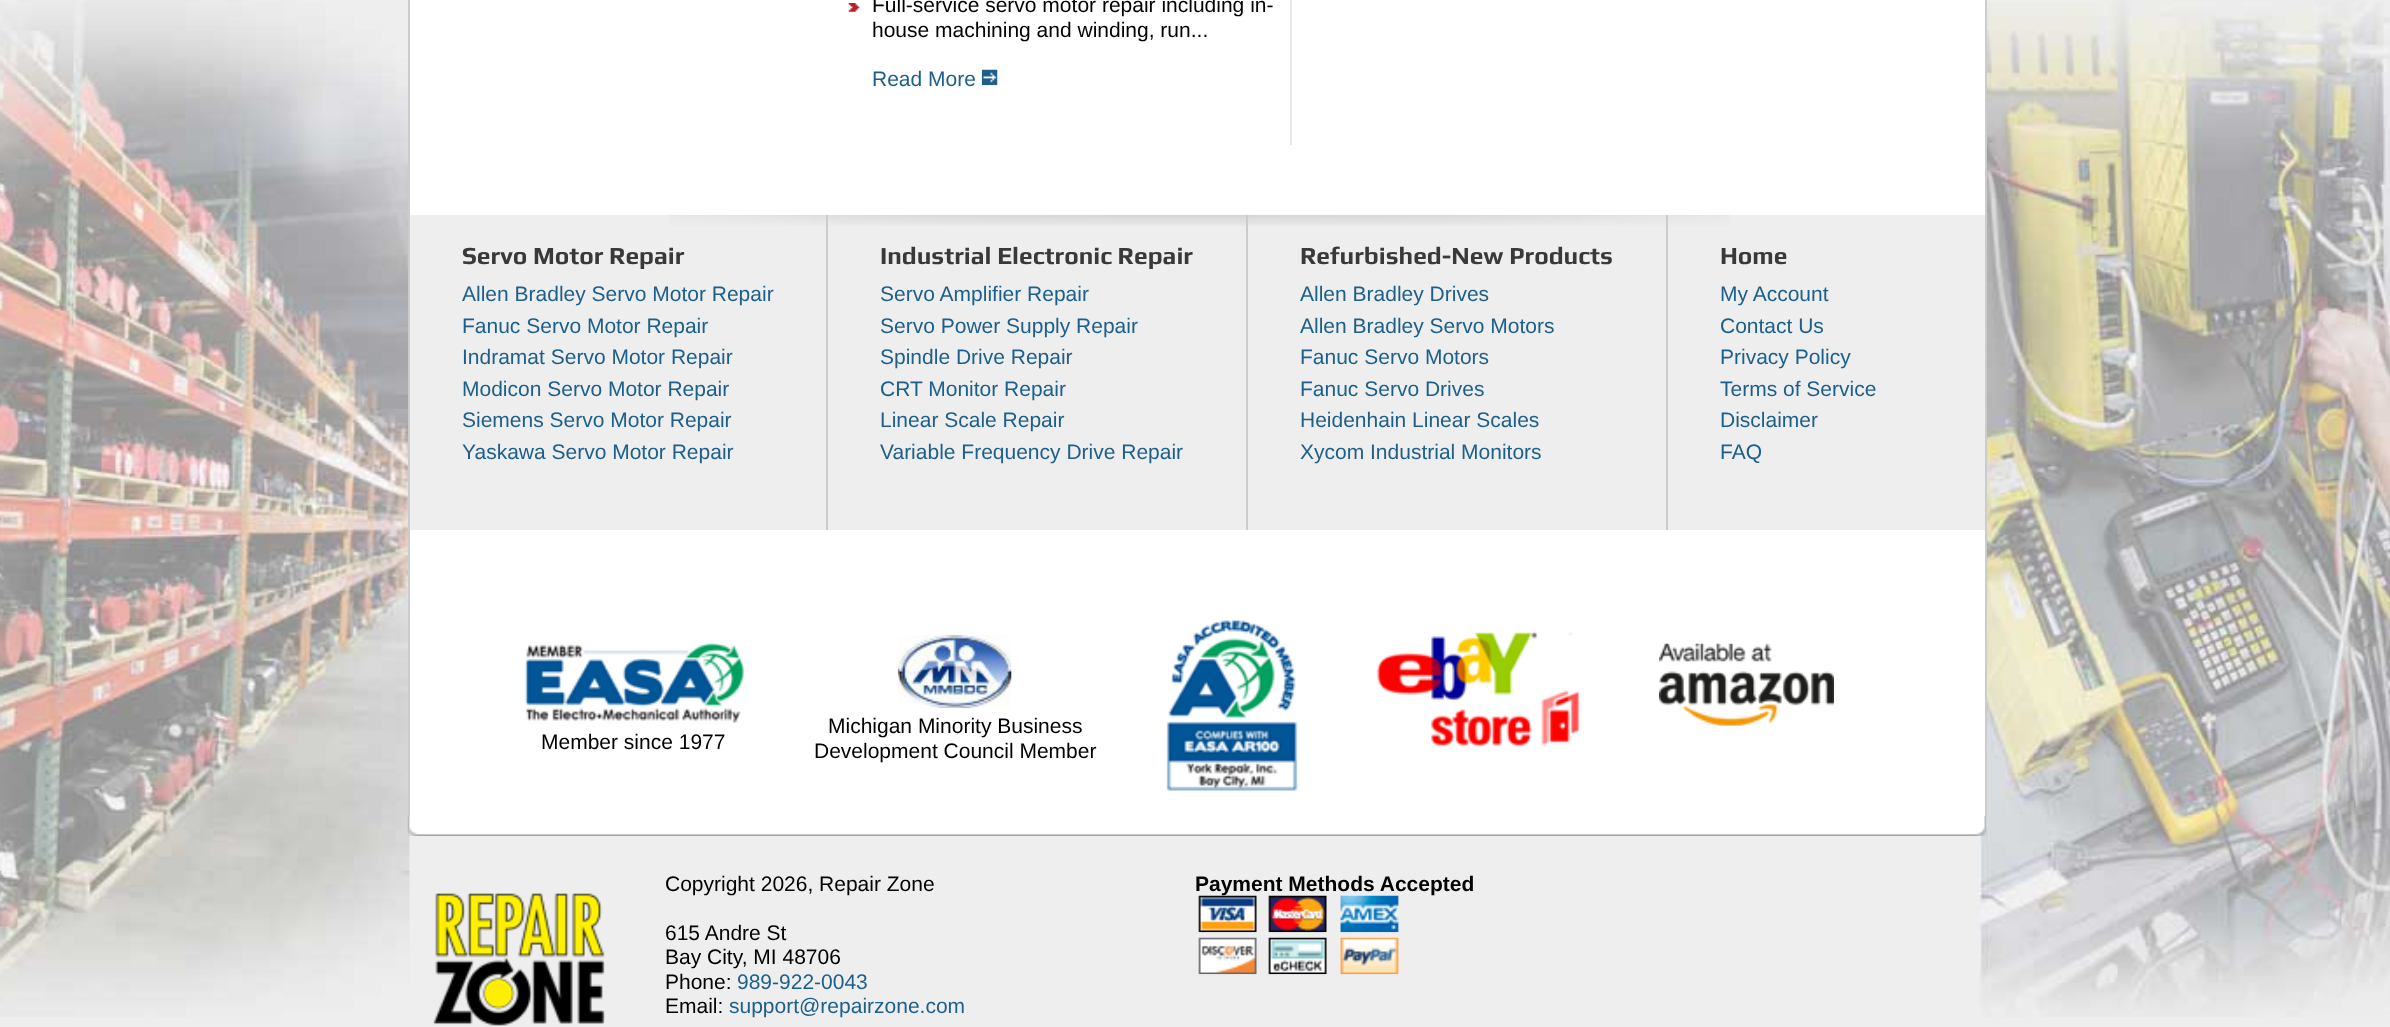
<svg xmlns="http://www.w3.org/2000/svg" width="2390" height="1027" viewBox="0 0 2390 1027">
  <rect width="100%" height="100%" fill="rgb(238,238,238)"/>
  <image x="0" y="0" width="2390" height="1017" href="pic1.png"/>
  <image x="407" y="815" width="1580" height="21" href="pic10.png"/>
  <rect x="410" y="0" width="1575" height="816" fill="rgb(255,255,255)"/>
  <rect x="1985" y="0" width="2" height="816" fill="rgb(204,204,204)"/>
  <rect x="408" y="0" width="2" height="816" fill="rgb(204,204,204)"/>
  <rect x="1290" y="0" width="2" height="145" fill="rgb(232,232,232)"/>
  <image x="848" y="3" width="12" height="9" href="pic2.png"/>
  <g font-family="Liberation Sans" font-size="21" fill="rgb(0,0,0)">
    <text>
      <tspan x="872" y="12">Full-service servo motor repair including in-</tspan>
      <tspan x="872" y="37">house machining and winding, run...</tspan>
    </text>
  </g>
  <text x="872" y="86" font-family="Liberation Sans" font-size="21" fill="rgb(28,95,139)">Read More</text>
  <image x="981" y="69" width="17" height="17" href="pic3.png"/>
  <rect x="410" y="215" width="1575" height="315" fill="rgb(238,238,238)"/>
  <image x="669" y="214" width="1061" height="12" href="pic4.png"/>
  <rect x="826" y="215" width="2" height="315" fill="rgb(204,204,204)"/>
  <text x="462" y="264" font-family="Play" font-size="24.5" font-weight="bold" fill="rgb(57,57,57)">Servo Motor Repair</text>
  <g font-family="Liberation Sans" font-size="21" fill="rgb(28,95,139)">
    <text>
      <tspan x="462" y="301">Allen Bradley Servo Motor Repair</tspan>
      <tspan x="462" y="333">Fanuc Servo Motor Repair</tspan>
      <tspan x="462" y="364">Indramat Servo Motor Repair</tspan>
      <tspan x="462" y="396">Modicon Servo Motor Repair</tspan>
      <tspan x="462" y="427">Siemens Servo Motor Repair</tspan>
      <tspan x="462" y="459">Yaskawa Servo Motor Repair</tspan>
    </text>
  </g>
  <rect x="1246" y="215" width="2" height="315" fill="rgb(204,204,204)"/>
  <text x="880" y="264" font-family="Play" font-size="24.5" font-weight="bold" fill="rgb(57,57,57)">Industrial Electronic Repair</text>
  <g font-family="Liberation Sans" font-size="21" fill="rgb(28,95,139)">
    <text>
      <tspan x="880" y="301">Servo Amplifier Repair</tspan>
      <tspan x="880" y="333">Servo Power Supply Repair</tspan>
      <tspan x="880" y="364">Spindle Drive Repair</tspan>
      <tspan x="880" y="396">CRT Monitor Repair</tspan>
      <tspan x="880" y="427">Linear Scale Repair</tspan>
      <tspan x="880" y="459">Variable Frequency Drive Repair</tspan>
    </text>
  </g>
  <rect x="1666" y="215" width="2" height="315" fill="rgb(204,204,204)"/>
  <text x="1300" y="264" font-family="Play" font-size="24.5" font-weight="bold" fill="rgb(57,57,57)">Refurbished-New Products</text>
  <g font-family="Liberation Sans" font-size="21" fill="rgb(28,95,139)">
    <text>
      <tspan x="1300" y="301">Allen Bradley Drives</tspan>
      <tspan x="1300" y="333">Allen Bradley Servo Motors</tspan>
      <tspan x="1300" y="364">Fanuc Servo Motors</tspan>
      <tspan x="1300" y="396">Fanuc Servo Drives</tspan>
      <tspan x="1300" y="427">Heidenhain Linear Scales</tspan>
      <tspan x="1300" y="459">Xycom Industrial Monitors</tspan>
    </text>
  </g>
  <text x="1720" y="264" font-family="Play" font-size="24.5" font-weight="bold" fill="rgb(57,57,57)">Home</text>
  <g font-family="Liberation Sans" font-size="21" fill="rgb(28,95,139)">
    <text>
      <tspan x="1720" y="301">My Account</tspan>
      <tspan x="1720" y="333">Contact Us</tspan>
      <tspan x="1720" y="364">Privacy Policy</tspan>
      <tspan x="1720" y="396">Terms of Service</tspan>
      <tspan x="1720" y="427">Disclaimer</tspan>
      <tspan x="1720" y="459">FAQ</tspan>
    </text>
  </g>
  <image x="1166" y="619" width="132" height="172" href="pic5.png"/>
  <image x="1376" y="632" width="205" height="115" href="pic6.png"/>
  <image x="1659" y="643" width="175" height="83" href="pic7.png"/>
  <image x="524" y="643" width="220" height="80" href="pic8.png"/>
  <text x="541" y="749" font-family="Liberation Sans" font-size="21" fill="rgb(0,0,0)">Member since 1977</text>
  <image x="897" y="634" width="115" height="75" href="pic9.png"/>
  <g font-family="Liberation Sans" font-size="21" fill="rgb(0,0,0)">
    <text x="828" y="733">Michigan Minority Business</text>
    <text x="814" y="758">Development Council Member</text>
    <text x="665" y="891">Copyright 2026, Repair Zone</text>
    <text>
      <tspan x="665" y="940">615 Andre St</tspan>
      <tspan x="665" y="964">Bay City, MI 48706</tspan>
      <tspan x="665" y="989">Phone:</tspan>
    </text>
  </g>
  <text x="737" y="989" font-family="Liberation Sans" font-size="21" fill="rgb(28,95,139)">989-922-0043</text>
  <text x="665" y="1013" font-family="Liberation Sans" font-size="21" fill="rgb(0,0,0)">Email:</text>
  <text x="729" y="1013" font-family="Liberation Sans" font-size="21" fill="rgb(28,95,139)">support@repairzone.com</text>
  <text x="1195" y="891" font-family="Liberation Sans" font-size="21" font-weight="bold" fill="rgb(0,0,0)">Payment Methods Accepted</text>
  <image x="1198" y="895" width="59" height="38" href="pic11.png"/>
  <image x="1268" y="895" width="59" height="38" href="pic12.png"/>
  <image x="1340" y="895" width="59" height="38" href="pic13.png"/>
  <image x="1198" y="937" width="59" height="38" href="pic14.png"/>
  <image x="1268" y="937" width="59" height="38" href="pic15.png"/>
  <image x="1340" y="937" width="59" height="38" href="pic16.png"/>
  <image x="433" y="893" width="172" height="133" href="pic17.png"/>
</svg>
